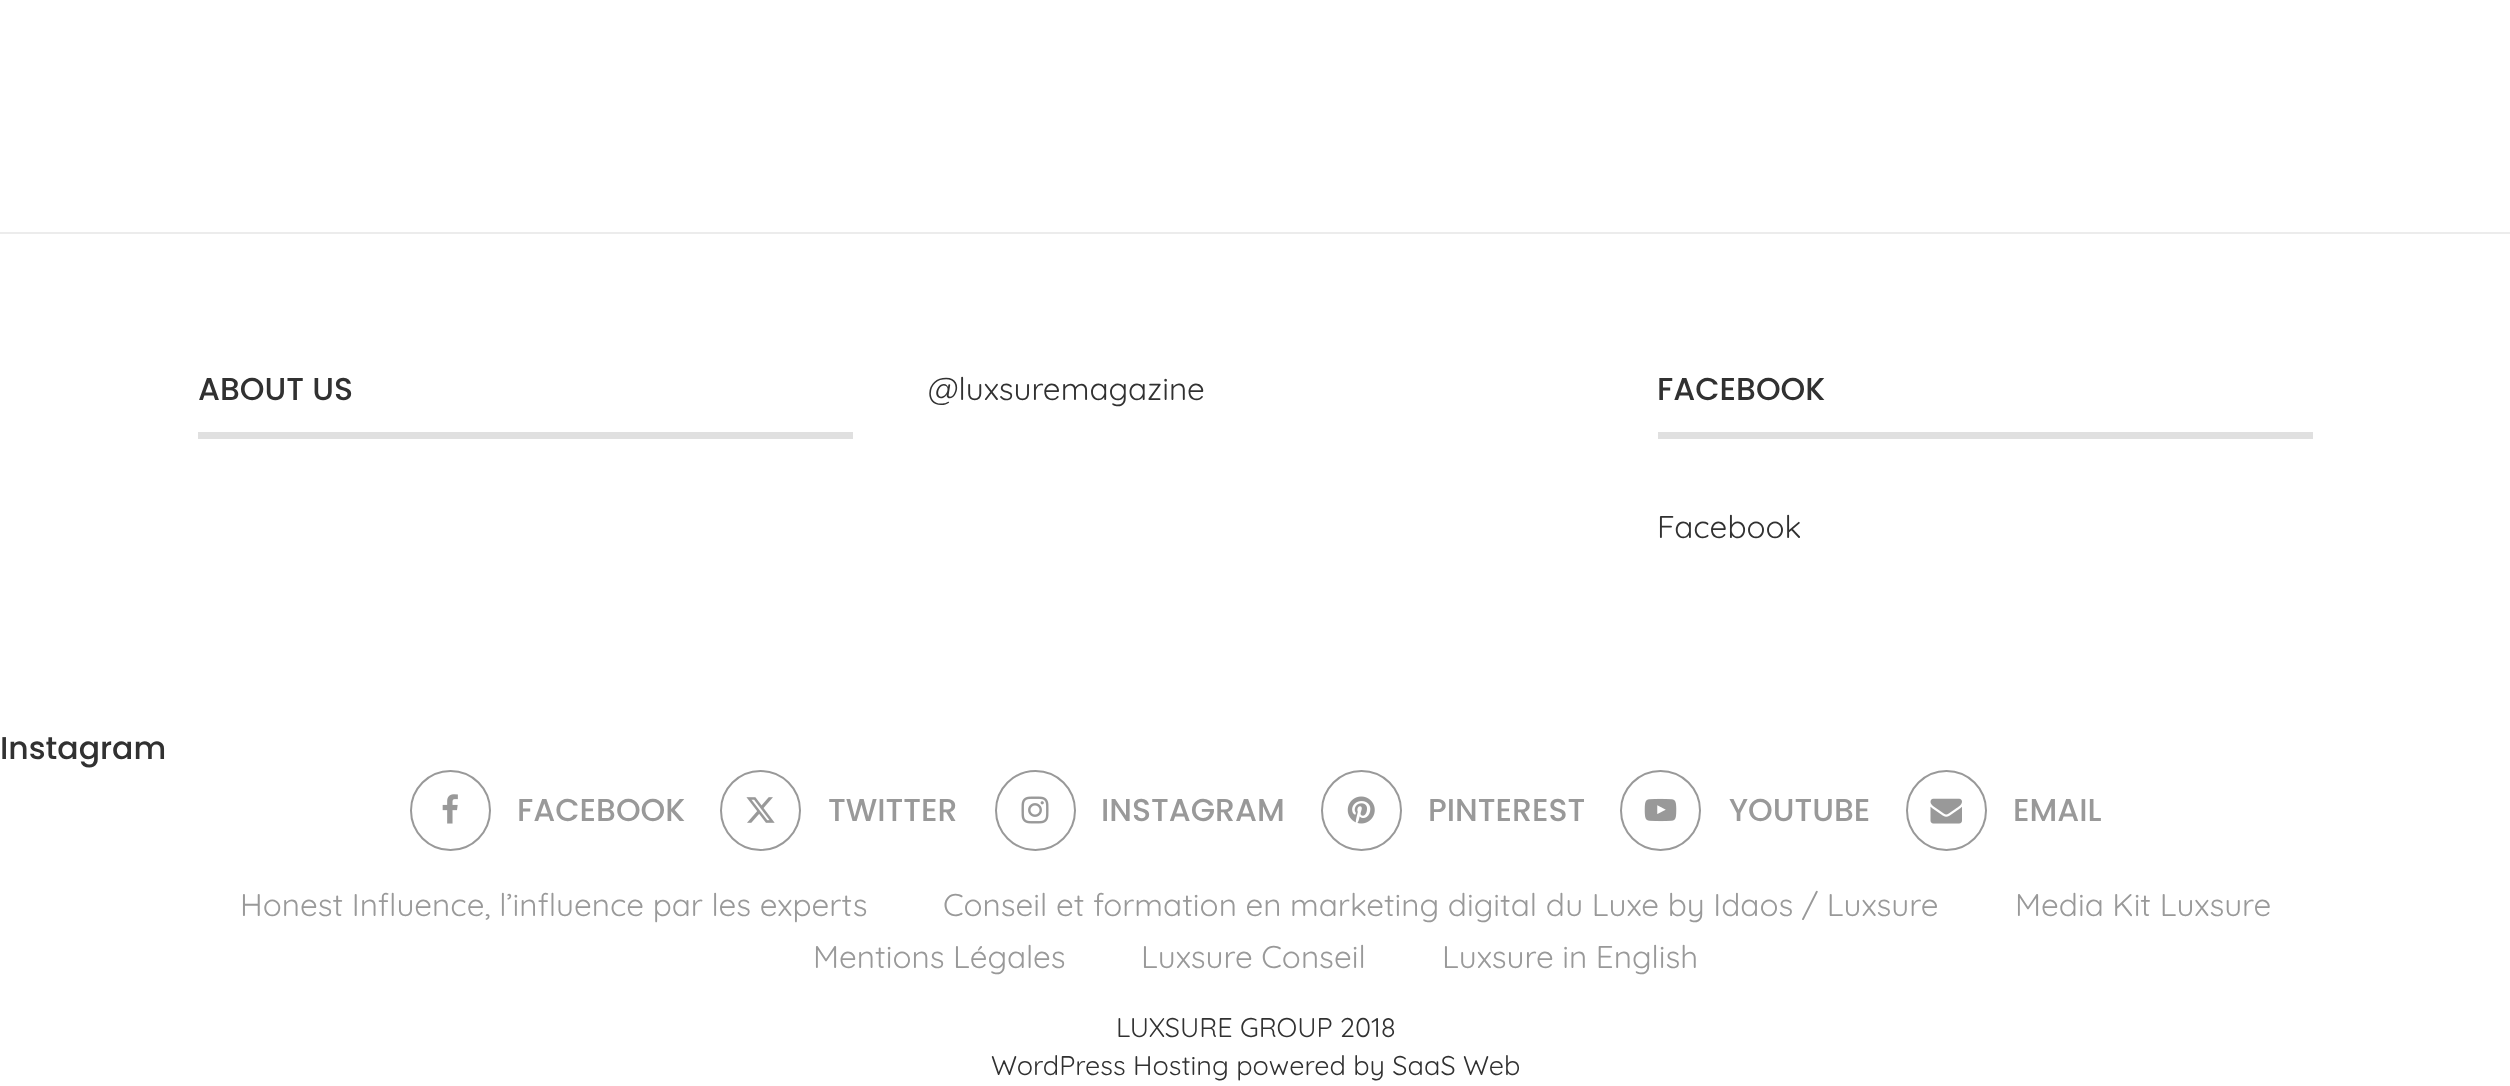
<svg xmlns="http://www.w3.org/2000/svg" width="2510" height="1086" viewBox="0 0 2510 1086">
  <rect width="100%" height="100%" fill="rgb(255,255,255)"/>
  <rect x="0" y="232" width="2510" height="2" fill="rgb(236,236,236)"/>
  <rect x="198" y="432" width="655" height="7" fill="rgb(224,224,224)"/>
  <text x="198" y="400" font-family="Poppins" font-size="31.5" font-weight="500" fill="rgb(49,49,49)">ABOUT US</text>
  <text x="928" y="400" font-family="Quicksand" font-size="31.5" fill="rgb(49,49,49)">@luxsuremagazine</text>
  <rect x="1658" y="432" width="655" height="7" fill="rgb(224,224,224)"/>
  <text x="1657" y="400" font-family="Poppins" font-size="31.5" font-weight="500" fill="rgb(49,49,49)">FACEBOOK</text>
  <text x="1657" y="538" font-family="Quicksand" font-size="31.5" fill="rgb(49,49,49)">Facebook</text>
  <text x="0" y="759" font-family="Poppins" font-size="31.5" font-weight="500" fill="rgb(49,49,49)">Instagram</text>
  <circle cx="450.5" cy="810.5" r="39.5" fill="none" stroke="rgb(153,153,153)" stroke-width="2"/>
  <image x="442" y="794" width="16" height="30" href="pic1.png"/>
  <text x="517" y="821" font-family="Poppins" font-size="31.5" font-weight="500" fill="rgb(153,153,153)">FACEBOOK</text>
  <circle cx="760.5" cy="810.5" r="39.5" fill="none" stroke="rgb(153,153,153)" stroke-width="2"/>
  <image x="746" y="797" width="29" height="26" href="pic2.png"/>
  <text x="828" y="821" font-family="Poppins" font-size="31.5" font-weight="500" fill="rgb(153,153,153)">TWITTER</text>
  <circle cx="1035.5" cy="810.5" r="39.5" fill="none" stroke="rgb(153,153,153)" stroke-width="2"/>
  <image x="1021" y="796" width="28" height="28" href="pic3.png"/>
  <text x="1101" y="821" font-family="Poppins" font-size="31.5" font-weight="500" fill="rgb(153,153,153)">INSTAGRAM</text>
  <circle cx="1361.5" cy="810.5" r="39.5" fill="none" stroke="rgb(153,153,153)" stroke-width="2"/>
  <image x="1347" y="796" width="28" height="28" href="pic4.png"/>
  <text x="1428" y="821" font-family="Poppins" font-size="31.5" font-weight="500" fill="rgb(153,153,153)">PINTEREST</text>
  <circle cx="1660.5" cy="810.5" r="39.5" fill="none" stroke="rgb(153,153,153)" stroke-width="2"/>
  <image x="1644" y="798" width="33" height="24" href="pic5.png"/>
  <text x="1729" y="821" font-family="Poppins" font-size="31.5" font-weight="500" fill="rgb(153,153,153)">YOUTUBE</text>
  <circle cx="1946.5" cy="810.5" r="39.5" fill="none" stroke="rgb(153,153,153)" stroke-width="2"/>
  <image x="1930" y="798" width="32" height="26" href="pic6.png"/>
  <text x="2013" y="821" font-family="Poppins" font-size="31.5" font-weight="500" fill="rgb(153,153,153)">EMAIL</text>
  <g font-family="Quicksand" font-size="31.5" fill="rgb(153,153,153)">
    <text x="240" y="916">Honest Influence, l’influence par les experts</text>
    <text x="943" y="916">Conseil et formation en marketing digital du Luxe by Idaos / Luxsure</text>
    <text x="2015" y="916">Media Kit Luxsure</text>
    <text x="813" y="968">Mentions Légales</text>
    <text x="1141" y="968">Luxsure Conseil</text>
    <text x="1442" y="968">Luxsure in English</text>
  </g>
  <g font-family="Quicksand" font-size="27" fill="rgb(49,49,49)">
    <text x="1116" y="1037">LUXSURE GROUP 2018</text>
    <text x="991" y="1075">WordPress Hosting powered by SaaS Web</text>
  </g>
</svg>
